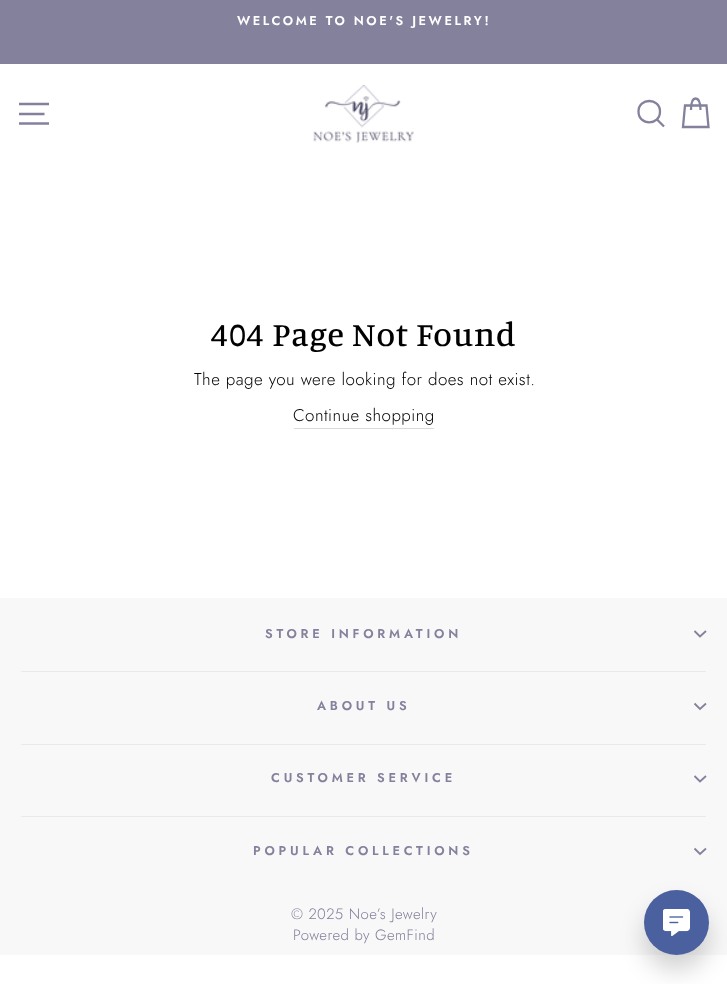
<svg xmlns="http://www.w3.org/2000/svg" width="727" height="984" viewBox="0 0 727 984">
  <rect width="100%" height="100%" fill="rgb(255,255,255)"/>
  <rect x="0" y="0" width="727" height="64" fill="rgb(131,129,156)"/>
  <text x="237" y="25" font-family="Jost" font-size="12.75" font-weight="600" letter-spacing="2.55" fill="rgb(255,255,255)">WELCOME TO NOE'S JEWELRY!</text>
  <rect x="0" y="64" width="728" height="100" fill="rgba(0,0,0,0.2)" filter="blur(0.5px)"/>
  <rect x="0" y="64" width="727" height="100" fill="rgb(255,255,255)"/>
  <path d="M19 104H49M19 114H44.5M19 123.5H49" fill="none" stroke="rgb(131,129,156)" stroke-width="2.3"/>
  <image x="313" y="85" width="101" height="58" href="pic1.png"/>
  <path d="M660 111.5C660 126 638.5 126 638.5 111.5C638.5 97.5 660 97.5 660 111.5ZM664 126.5L657 119.5" fill="none" stroke="rgb(131,129,156)" stroke-width="2.3"/>
  <path d="M691 110C691 101 693 98.5 695.5 98.5C698 98.5 700.5 101 700.5 110M685 105.5H706.5L708.5 127H683Z" fill="none" stroke="rgb(131,129,156)" stroke-width="2.3"/>
  <text x="211" y="346" font-family="Manuale" font-size="34" font-weight="500" letter-spacing="0.8" fill="rgb(0,0,0)">404 Page Not Found</text>
  <text x="194" y="385" font-family="Jost" font-size="17" font-weight="300" letter-spacing="0.45" fill="rgb(0,0,0)">The page you were looking for does not exist.</text>
  <rect x="294" y="428" width="140" height="1" fill="rgb(217,217,217)"/>
  <text x="293" y="421" font-family="Jost" font-size="17" font-weight="300" letter-spacing="0.45" fill="rgb(0,0,0)">Continue shopping</text>
  <rect x="0" y="598" width="727" height="357" fill="rgb(248,248,248)"/>
  <text x="265" y="638" font-family="Jost" font-size="12.75" font-weight="600" letter-spacing="3.8" fill="rgb(131,129,156)">STORE INFORMATION</text>
  <path d="M694.5 631L700 636.5L706 631" fill="none" stroke="rgb(131,129,156)" stroke-width="1.8"/>
  <rect x="21" y="671" width="685" height="1" fill="rgb(234,234,237)"/>
  <text x="317" y="710" font-family="Jost" font-size="12.75" font-weight="600" letter-spacing="3.8" fill="rgb(131,129,156)">ABOUT US</text>
  <path d="M694.5 703.5L700 709L706 703.5" fill="none" stroke="rgb(131,129,156)" stroke-width="1.8"/>
  <rect x="21" y="744" width="685" height="1" fill="rgb(234,234,237)"/>
  <text x="271" y="782" font-family="Jost" font-size="12.75" font-weight="600" letter-spacing="3.8" fill="rgb(131,129,156)">CUSTOMER SERVICE</text>
  <path d="M694.5 776L700 781.5L706 776" fill="none" stroke="rgb(131,129,156)" stroke-width="1.8"/>
  <rect x="21" y="816" width="685" height="1" fill="rgb(234,234,237)"/>
  <text x="253" y="855" font-family="Jost" font-size="12.75" font-weight="600" letter-spacing="3.8" fill="rgb(131,129,156)">POPULAR COLLECTIONS</text>
  <path d="M694.5 848.5L700 854L706 848.5" fill="none" stroke="rgb(131,129,156)" stroke-width="1.8"/>
  <g font-family="Jost" font-size="15" font-weight="300" letter-spacing="0.45" fill="rgb(131,129,156)">
    <text x="291" y="919">© 2025 Noe’s Jewelry</text>
    <text x="293" y="940">Powered by GemFind</text>
  </g>
  <rect x="644" y="905" width="65" height="65" rx="32.5" fill="rgba(0,0,0,0.18)" filter="blur(12px)"/>
  <circle cx="676.5" cy="922.5" r="32.5" fill="rgb(74,96,159)"/>
  <image x="663" y="909" width="27" height="27" href="pic2.png"/>
</svg>
